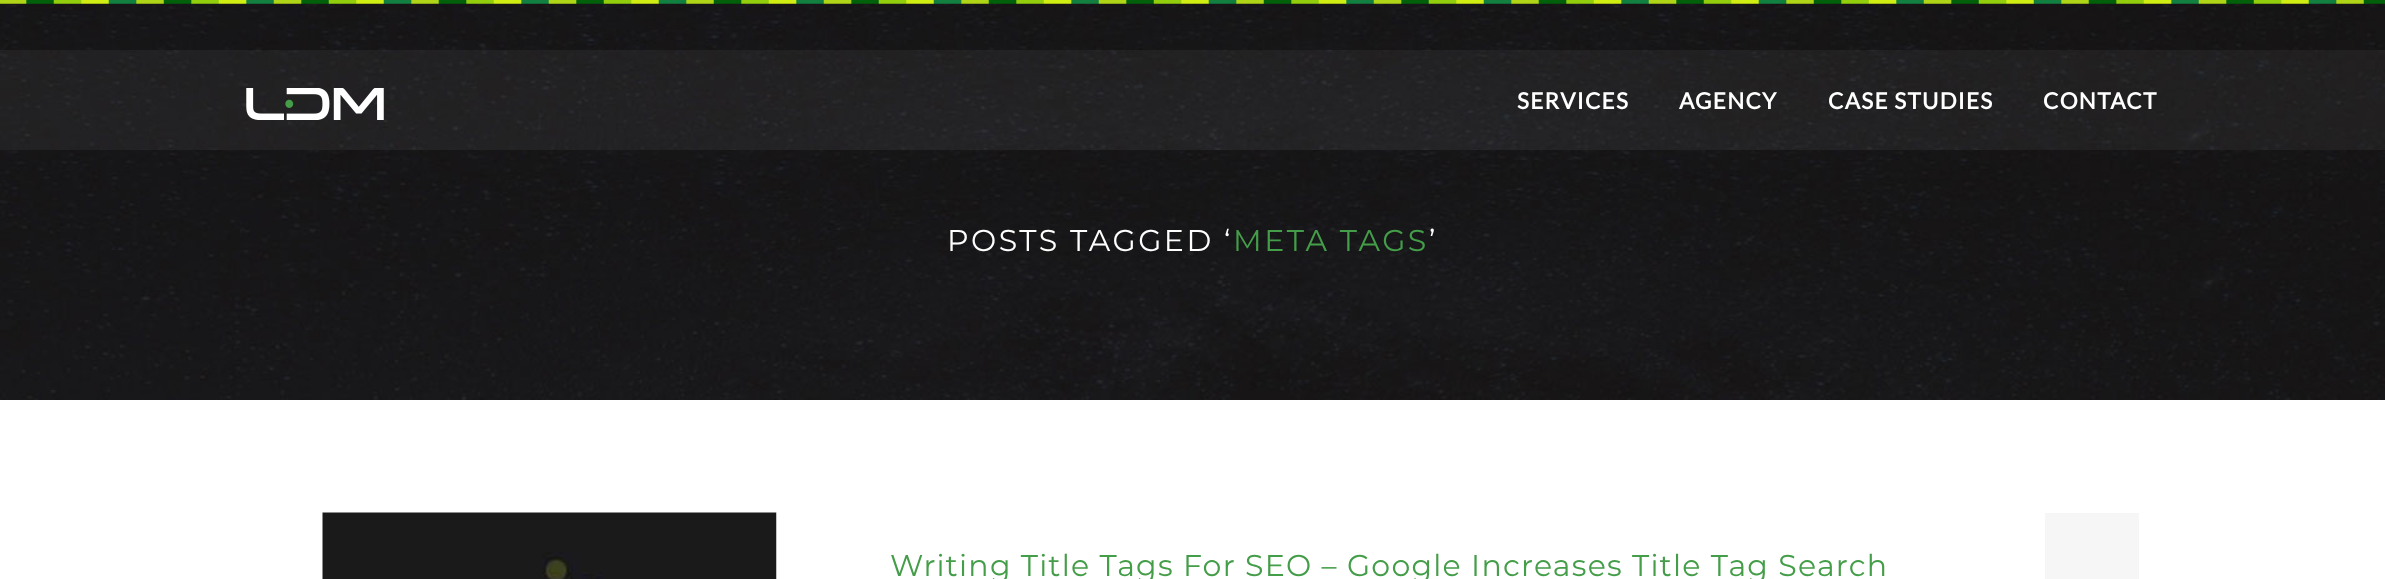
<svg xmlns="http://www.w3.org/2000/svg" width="2385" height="579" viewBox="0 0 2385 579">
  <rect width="100%" height="100%" fill="rgb(255,255,255)"/>
  <image x="0" y="3" width="2385" height="147" href="pic1.png"/>
  <image x="0" y="0" width="2385" height="4" href="pic2.png"/>
  <rect x="0" y="50" width="2385" height="100" fill="rgba(223,223,223,0.06)"/>
  <image x="246" y="88" width="138" height="32" href="pic3.png"/>
  <g font-family="Lato" font-size="22.5" font-weight="bold" letter-spacing="1.25" fill="rgb(255,255,255)">
    <text x="1517" y="109">SERVICES</text>
    <text x="1679" y="109">AGENCY</text>
    <text x="1828" y="109">CASE STUDIES</text>
    <text x="2043" y="109">CONTACT</text>
  </g>
  <image x="0" y="150" width="2385" height="250" href="pic4.png"/>
  <text x="947" y="251" font-family="Montserrat" font-size="30" font-weight="100" letter-spacing="2.5" fill="rgb(255,255,255)">POSTS TAGGED ‘</text>
  <text x="1233" y="251" font-family="Montserrat" font-size="30" font-weight="100" letter-spacing="2.5" fill="rgb(68,157,72)">META TAGS</text>
  <text x="1429" y="251" font-family="Montserrat" font-size="30" font-weight="100" letter-spacing="2.5" fill="rgb(255,255,255)">’</text>
  <image x="322" y="512" width="455" height="67" href="pic5.png"/>
  <text x="890" y="576" font-family="Montserrat" font-size="30" font-weight="100" letter-spacing="1.25" fill="rgb(68,157,72)">Writing Title Tags For SEO – Google Increases Title Tag Search</text>
  <rect x="2045" y="513" width="94" height="66" fill="rgb(246,246,246)"/>
</svg>
